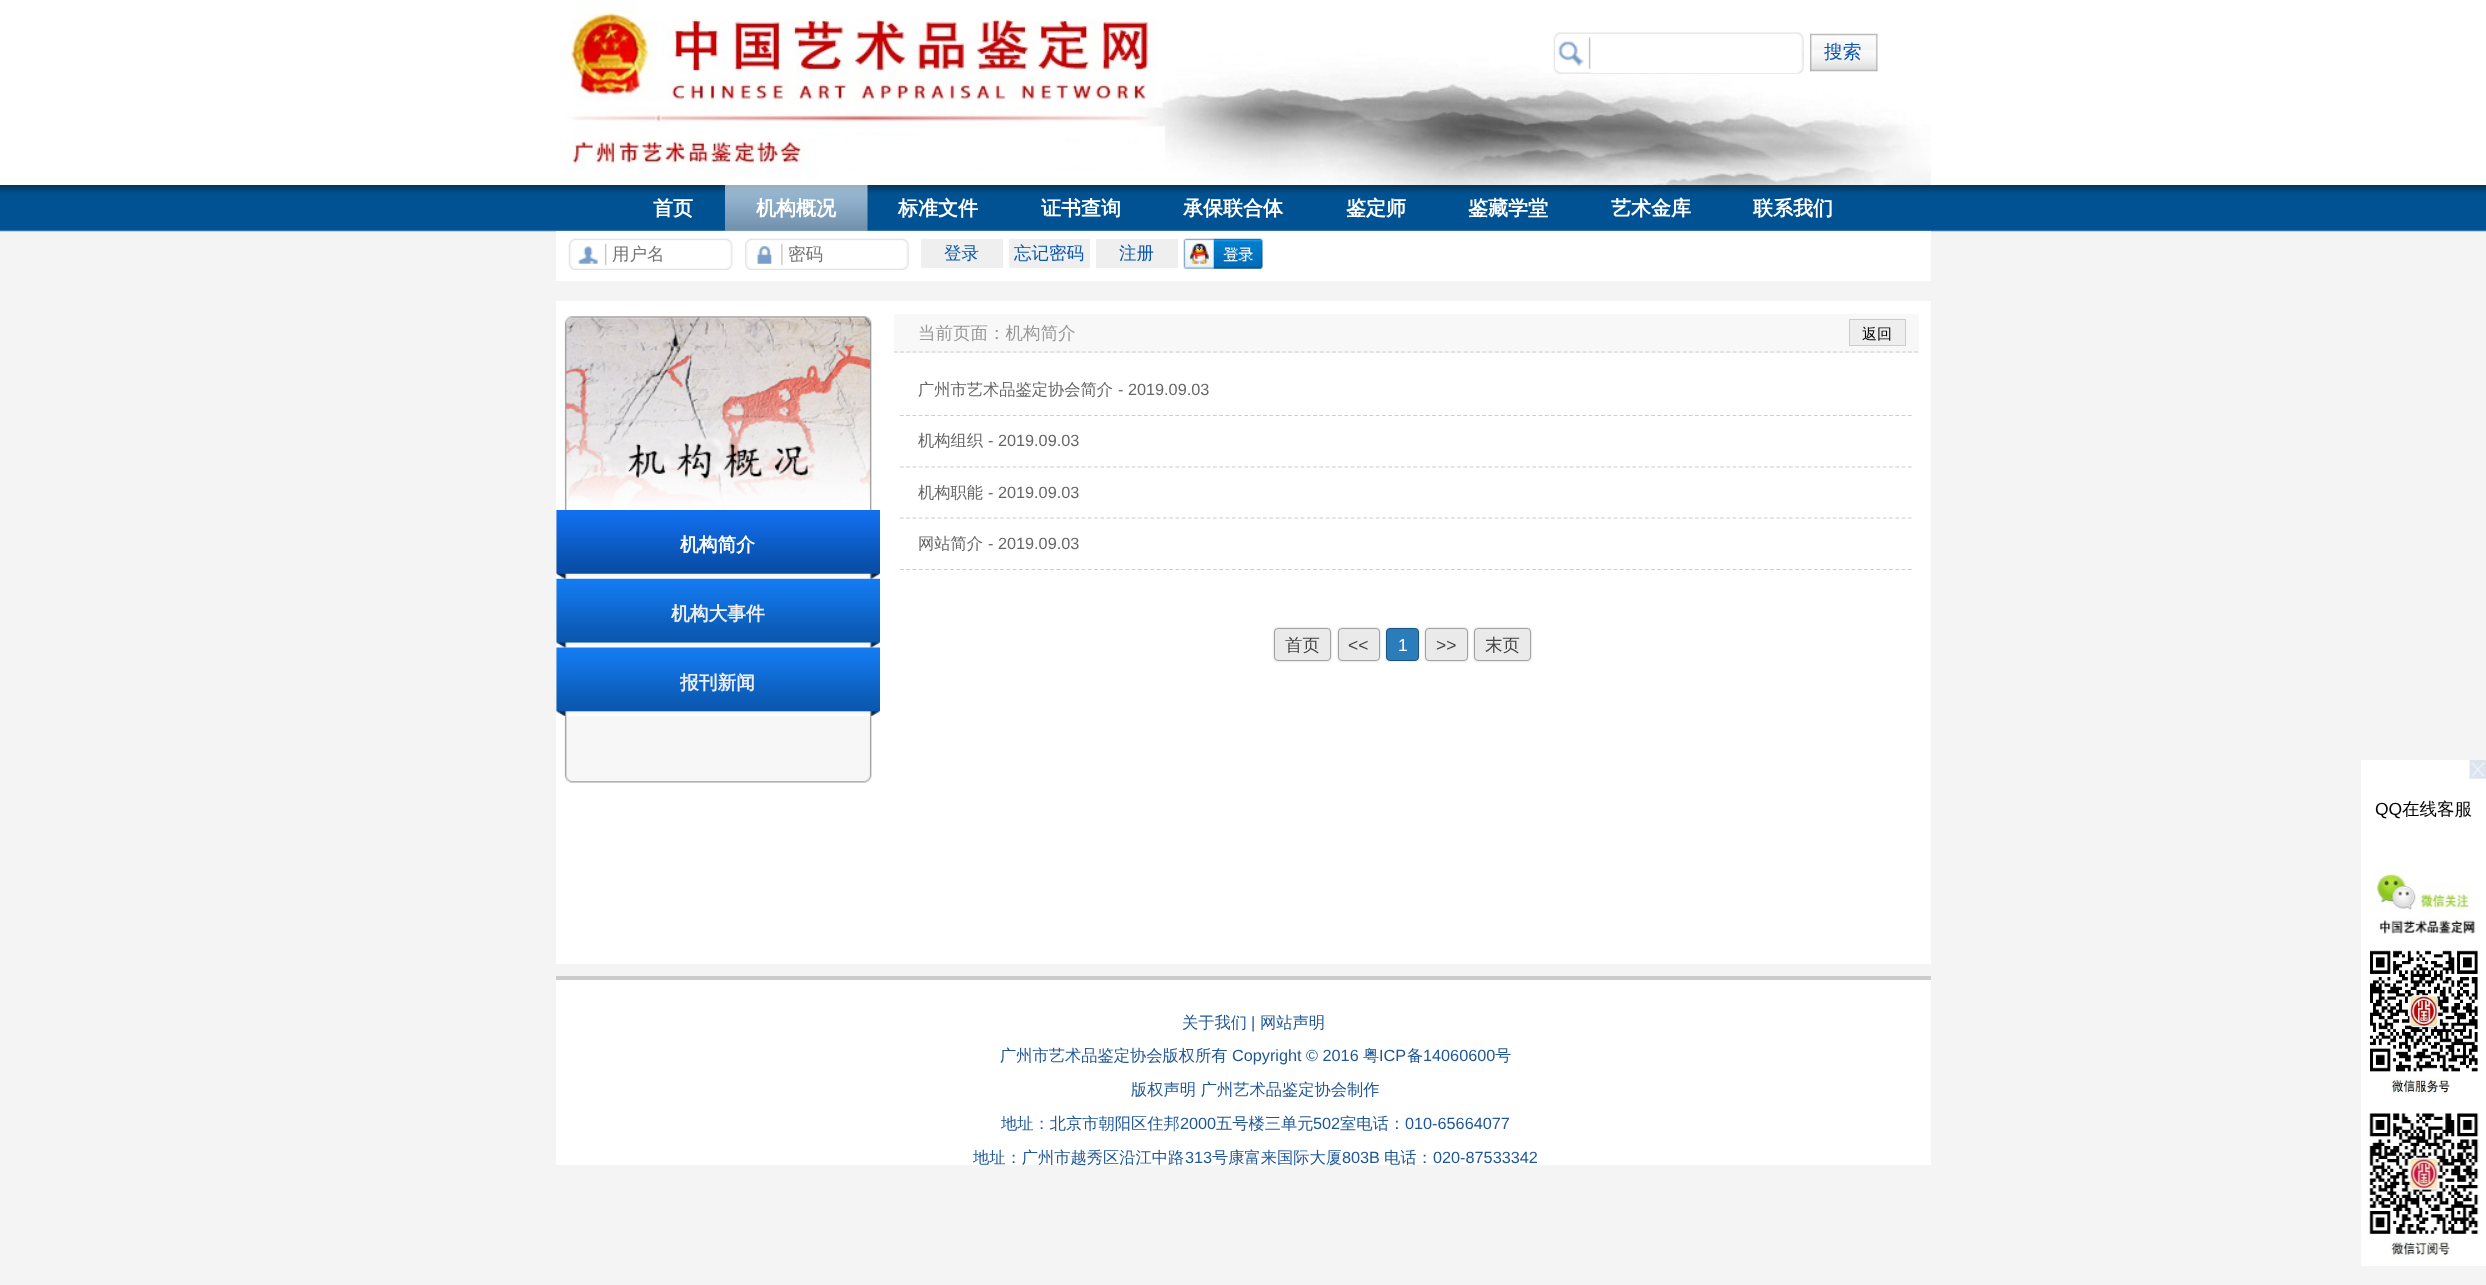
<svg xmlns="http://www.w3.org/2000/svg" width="2486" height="1285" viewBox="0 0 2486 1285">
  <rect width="100%" height="100%" fill="rgb(244,244,244)"/>
  <rect x="0" y="0" width="2486" height="185" fill="rgb(255,255,255)"/>
  <image x="559" y="0" width="1372" height="185" href="pic1.png"/>
  <image x="0" y="185" width="2486" height="47" href="pic7.png"/>
  <rect x="556" y="231" width="1375" height="50" fill="rgb(255,255,255)"/>
  <image x="1553" y="32" width="251" height="42" href="pic2.png"/>
  <rect x="1591" y="72" width="207" height="1" fill="rgb(255,255,255)"/>
  <image x="1810" y="33" width="68" height="39" href="pic3.png"/>
  <text x="1824" y="58" font-family="WenQuanYi Zen Hei" font-size="18.75" font-weight="500" fill="rgb(10,87,175)">搜索</text>
  <image x="568" y="238" width="165" height="32" href="pic4.png"/>
  <text x="612" y="260" font-family="WenQuanYi Zen Hei" font-size="17.5" font-weight="500" fill="rgb(117,117,117)">用户名</text>
  <image x="745" y="238" width="164" height="32" href="pic5.png"/>
  <text x="788" y="260" font-family="WenQuanYi Zen Hei" font-size="17.5" font-weight="500" fill="rgb(117,117,117)">密码</text>
  <rect x="921" y="239" width="82" height="29" fill="rgb(239,239,239)"/>
  <text x="944" y="259" font-family="WenQuanYi Zen Hei" font-size="17.5" font-weight="500" fill="rgb(10,87,175)">登录</text>
  <rect x="1009" y="239" width="81" height="29" fill="rgb(239,239,239)"/>
  <text x="1014" y="259" font-family="WenQuanYi Zen Hei" font-size="17.5" font-weight="500" fill="rgb(10,87,175)">忘记密码</text>
  <rect x="1096" y="239" width="82" height="29" fill="rgb(239,239,239)"/>
  <text x="1119" y="259" font-family="WenQuanYi Zen Hei" font-size="17.5" font-weight="500" fill="rgb(10,87,175)">注册</text>
  <image x="1183" y="238" width="80" height="31" href="pic6.png"/>
  <text x="653" y="215" font-family="WenQuanYi Zen Hei" font-size="20" font-weight="bold" fill="rgb(255,255,255)">首页</text>
  <image x="725" y="185" width="143" height="47" href="pic8.png"/>
  <g font-family="WenQuanYi Zen Hei" font-size="20" font-weight="bold" fill="rgb(255,255,255)">
    <text x="756" y="215">机构概况</text>
    <text x="898" y="215">标准文件</text>
    <text x="1041" y="215">证书查询</text>
    <text x="1183" y="215">承保联合体</text>
    <text x="1346" y="215">鉴定师</text>
    <text x="1468" y="215">鉴藏学堂</text>
    <text x="1611" y="215">艺术金库</text>
    <text x="1753" y="215">联系我们</text>
  </g>
  <rect x="556" y="301" width="1375" height="663" fill="rgb(255,255,255)"/>
  <image x="564" y="316" width="308" height="194" href="pic9.png"/>
  <image x="556" y="510" width="324" height="69" href="pic10.png"/>
  <text x="680" y="551" font-family="WenQuanYi Zen Hei" font-size="18.75" font-weight="bold" fill="rgb(255,255,255)">机构简介</text>
  <image x="556" y="578" width="324" height="70" href="pic11.png"/>
  <text x="671" y="620" font-family="WenQuanYi Zen Hei" font-size="18.75" font-weight="bold" fill="rgb(238,238,238)">机构大事件</text>
  <image x="556" y="647" width="324" height="70" href="pic12.png"/>
  <text x="680" y="689" font-family="WenQuanYi Zen Hei" font-size="18.75" font-weight="bold" fill="rgb(238,238,238)">报刊新闻</text>
  <image x="563" y="716" width="310" height="67" href="pic13.png"/>
  <rect x="894" y="314" width="1025" height="39" fill="rgb(248,248,248)"/>
  <path d="M894 352H1919" fill="none" stroke="rgb(204,204,204)" stroke-width="1.2" stroke-dasharray="3.75 2.51"/>
  <text x="918" y="339" font-family="WenQuanYi Zen Hei" font-size="17.5" font-weight="500" fill="rgb(153,153,153)">当前页面：机构简介</text>
  <rect x="1849.5" y="319.5" width="56" height="26" fill="rgb(238,238,238)" stroke="rgb(204,204,204)"/>
  <text x="1862" y="339" font-family="WenQuanYi Zen Hei" font-size="15" font-weight="500" fill="rgb(0,0,0)">返回</text>
  <path d="M900 415.5H1912.5" fill="none" stroke="rgb(204,204,204)" stroke-width="1.2" stroke-dasharray="3.75 2.51"/>
  <text x="918" y="395" font-family="WenQuanYi Zen Hei" font-size="16.25" font-weight="500" fill="rgb(102,102,102)">广州市艺术品鉴定协会简介</text>
  <text x="1118" y="395" font-family="Liberation Sans" font-size="16.25" fill="rgb(102,102,102)">- 2019.09.03</text>
  <path d="M900 467H1912.5" fill="none" stroke="rgb(204,204,204)" stroke-width="1.2" stroke-dasharray="3.75 2.51"/>
  <text x="918" y="446" font-family="WenQuanYi Zen Hei" font-size="16.25" font-weight="500" fill="rgb(102,102,102)">机构组织</text>
  <text x="988" y="446" font-family="Liberation Sans" font-size="16.25" fill="rgb(102,102,102)">- 2019.09.03</text>
  <path d="M900 518H1912.5" fill="none" stroke="rgb(204,204,204)" stroke-width="1.2" stroke-dasharray="3.75 2.51"/>
  <text x="918" y="498" font-family="WenQuanYi Zen Hei" font-size="16.25" font-weight="500" fill="rgb(102,102,102)">机构职能</text>
  <text x="988" y="498" font-family="Liberation Sans" font-size="16.25" fill="rgb(102,102,102)">- 2019.09.03</text>
  <path d="M900 569.5H1912.5" fill="none" stroke="rgb(204,204,204)" stroke-width="1.2" stroke-dasharray="3.75 2.51"/>
  <text x="918" y="549" font-family="WenQuanYi Zen Hei" font-size="16.25" font-weight="500" fill="rgb(102,102,102)">网站简介</text>
  <text x="988" y="549" font-family="Liberation Sans" font-size="16.25" fill="rgb(102,102,102)">- 2019.09.03</text>
  <rect x="1274" y="628" width="57" height="33" rx="4" fill="rgb(204,204,204)" filter="blur(1px)"/>
  <rect x="1274.5" y="628.5" width="56" height="32" rx="3.5" fill="rgb(234,234,234)" stroke="rgb(162,162,162)"/>
  <text x="1285" y="651" font-family="WenQuanYi Zen Hei" font-size="17.5" font-weight="500" fill="rgb(68,68,68)">首页</text>
  <rect x="1338" y="628" width="42" height="33" rx="4" fill="rgb(204,204,204)" filter="blur(1px)"/>
  <rect x="1338.5" y="628.5" width="41" height="32" rx="3.5" fill="rgb(234,234,234)" stroke="rgb(162,162,162)"/>
  <text x="1348" y="651" font-family="Liberation Sans" font-size="17.5" fill="rgb(68,68,68)">&lt;&lt;</text>
  <rect x="1386" y="628" width="33" height="33" rx="4" fill="rgb(204,204,204)" filter="blur(1px)"/>
  <rect x="1386.5" y="628.5" width="32" height="32" rx="3.5" fill="rgb(42,125,186)" stroke="rgb(29,85,127)"/>
  <text x="1398" y="651" font-family="Liberation Sans" font-size="17.5" fill="rgb(255,255,255)">1</text>
  <rect x="1425" y="628" width="43" height="33" rx="4" fill="rgb(204,204,204)" filter="blur(1px)"/>
  <rect x="1425.5" y="628.5" width="42" height="32" rx="3.5" fill="rgb(234,234,234)" stroke="rgb(162,162,162)"/>
  <text x="1436" y="651" font-family="Liberation Sans" font-size="17.5" fill="rgb(68,68,68)">&gt;&gt;</text>
  <rect x="1474" y="628" width="57" height="33" rx="4" fill="rgb(204,204,204)" filter="blur(1px)"/>
  <rect x="1474.5" y="628.5" width="56" height="32" rx="3.5" fill="rgb(234,234,234)" stroke="rgb(162,162,162)"/>
  <text x="1485" y="651" font-family="WenQuanYi Zen Hei" font-size="17.5" font-weight="500" fill="rgb(68,68,68)">末页</text>
  <rect x="2361" y="760" width="125" height="425" fill="rgb(255,255,255)"/>
  <image x="2469" y="760" width="17" height="19" href="pic14.png"/>
  <text x="2375" y="815" font-family="Liberation Sans" font-size="17.5" fill="rgb(0,0,0)">QQ</text>
  <text x="2402" y="815" font-family="WenQuanYi Zen Hei" font-size="17.5" font-weight="500" fill="rgb(0,0,0)">在线客服</text>
  <image x="2376" y="866" width="100" height="68" href="pic15.png"/>
  <image x="2370" y="950" width="108" height="147" href="pic16.png"/>
  <image x="2361" y="1113" width="125" height="153" href="pic17.png"/>
  <rect x="556" y="980" width="1375" height="185" fill="rgb(255,255,255)"/>
  <rect x="556" y="976" width="1375" height="4" fill="rgb(204,204,204)"/>
  <text x="1182" y="1028" font-family="WenQuanYi Zen Hei" font-size="16.25" font-weight="500" fill="rgb(31,87,150)">关于我们</text>
  <text x="1251" y="1028" font-family="Liberation Sans" font-size="16.25" fill="rgb(31,87,150)">|</text>
  <g font-family="WenQuanYi Zen Hei" font-size="16.25" font-weight="500" fill="rgb(31,87,150)">
    <text x="1260" y="1028">网站声明</text>
    <text x="1000" y="1061">广州市艺术品鉴定协会版权所有</text>
  </g>
  <text x="1232" y="1061" font-family="Liberation Sans" font-size="16.25" fill="rgb(31,87,150)">Copyright © 2016</text>
  <text x="1363" y="1061" font-family="WenQuanYi Zen Hei" font-size="16.25" font-weight="500" fill="rgb(31,87,150)">粤</text>
  <text x="1379" y="1061" font-family="Liberation Sans" font-size="16.25" fill="rgb(31,87,150)">ICP</text>
  <text x="1407" y="1061" font-family="WenQuanYi Zen Hei" font-size="16.25" font-weight="500" fill="rgb(31,87,150)">备</text>
  <text x="1423" y="1061" font-family="Liberation Sans" font-size="16.25" fill="rgb(31,87,150)">14060600</text>
  <g font-family="WenQuanYi Zen Hei" font-size="16.25" font-weight="500" fill="rgb(31,87,150)">
    <text x="1495" y="1061">号</text>
    <text x="1131" y="1095">版权声明 广州艺术品鉴定协会制作</text>
    <text x="1001" y="1129">地址：北京市朝阳区住邦</text>
  </g>
  <text x="1180" y="1129" font-family="Liberation Sans" font-size="16.25" fill="rgb(31,87,150)">2000</text>
  <text x="1216" y="1129" font-family="WenQuanYi Zen Hei" font-size="16.25" font-weight="500" fill="rgb(31,87,150)">五号楼三单元</text>
  <text x="1313" y="1129" font-family="Liberation Sans" font-size="16.25" fill="rgb(31,87,150)">502</text>
  <text x="1340" y="1129" font-family="WenQuanYi Zen Hei" font-size="16.25" font-weight="500" fill="rgb(31,87,150)">室电话：</text>
  <text x="1405" y="1129" font-family="Liberation Sans" font-size="16.25" fill="rgb(31,87,150)">010-65664077</text>
  <text x="973" y="1163" font-family="WenQuanYi Zen Hei" font-size="16.25" font-weight="500" fill="rgb(31,87,150)">地址：广州市越秀区沿江中路</text>
  <text x="1185" y="1163" font-family="Liberation Sans" font-size="16.25" fill="rgb(31,87,150)">313</text>
  <text x="1212" y="1163" font-family="WenQuanYi Zen Hei" font-size="16.25" font-weight="500" fill="rgb(31,87,150)">号康富来国际大厦</text>
  <text x="1342" y="1163" font-family="Liberation Sans" font-size="16.25" fill="rgb(31,87,150)">803B</text>
  <text x="1384" y="1163" font-family="WenQuanYi Zen Hei" font-size="16.25" font-weight="500" fill="rgb(31,87,150)">电话：</text>
  <text x="1433" y="1163" font-family="Liberation Sans" font-size="16.25" fill="rgb(31,87,150)">020-87533342</text>
</svg>
